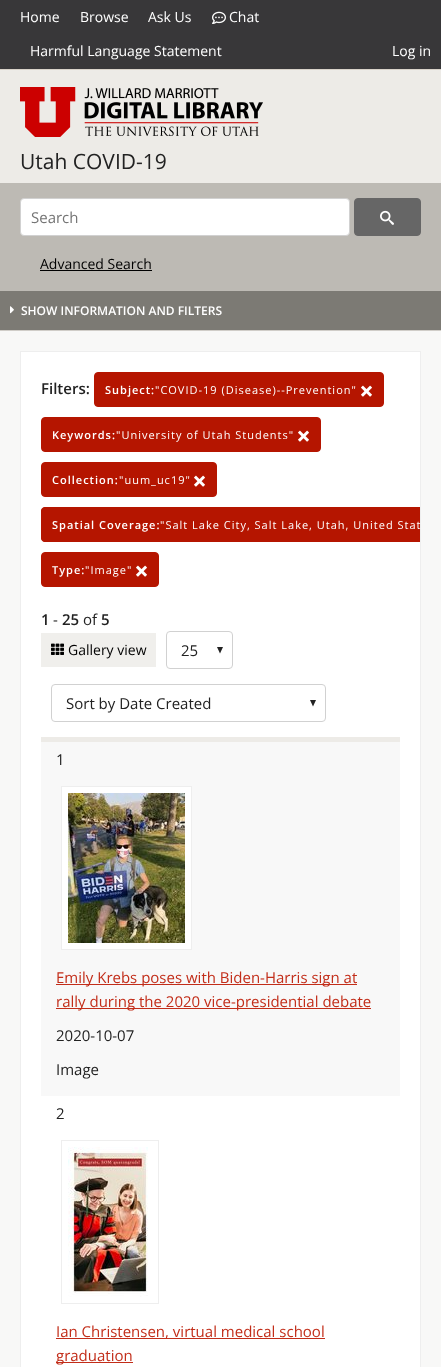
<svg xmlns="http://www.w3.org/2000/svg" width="441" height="1367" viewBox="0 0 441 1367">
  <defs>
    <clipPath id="clip1"><rect x="21" y="352" width="399" height="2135"/></clipPath>
  </defs>
  <rect width="100%" height="100%" fill="rgb(248,248,247)"/>
  <rect x="0" y="0" width="441" height="69" fill="rgb(56,55,57)"/>
  <g font-family="Open Sans" font-size="14" fill="rgb(255,255,255)">
    <text x="20" y="22">Home</text>
    <text x="80" y="22">Browse</text>
    <text x="148" y="22">Ask Us</text>
  </g>
  <image x="212" y="11" width="14" height="13" href="pic1.png"/>
  <g font-family="Open Sans" font-size="14" fill="rgb(255,255,255)">
    <text x="229" y="22">Chat</text>
    <text x="30" y="56">Harmful Language Statement</text>
    <text x="392" y="56">Log in</text>
  </g>
  <rect x="0" y="70" width="441" height="113" fill="rgb(237,235,231)"/>
  <rect x="0" y="69" width="441" height="1" fill="rgb(216,210,201)"/>
  <image x="20" y="87" width="243" height="50" href="pic2.png"/>
  <text x="20" y="169" font-family="Open Sans" font-size="21" fill="rgb(34,34,34)">Utah COVID-19</text>
  <rect x="0" y="183" width="441" height="108" fill="rgb(189,186,180)"/>
  <rect x="20.5" y="198.5" width="329" height="37" rx="3.5" fill="rgb(255,255,255)" stroke="rgb(209,209,209)"/>
  <text x="31" y="223" font-family="Open Sans" font-size="15" fill="rgb(117,117,117)">Search</text>
  <rect x="354.5" y="198.5" width="66" height="37" rx="3.5" fill="rgb(102,102,102)" stroke="rgb(102,102,102)"/>
  <image x="380" y="210" width="14" height="15" href="pic3.png"/>
  <text x="40" y="269" font-family="Open Sans" font-size="14" fill="rgb(0,0,0)">Advanced Search</text>
  <rect x="40" y="270" width="112" height="1" fill="rgb(0,0,0)"/>
  <rect x="0" y="291" width="441" height="39" fill="rgb(124,122,116)"/>
  <rect x="0" y="330" width="441" height="1" fill="rgb(208,205,200)"/>
  <image x="10" y="306" width="4" height="8" href="pic4.png"/>
  <text x="21" y="315" font-family="Open Sans" font-size="12" font-weight="600" fill="rgb(255,255,255)">SHOW INFORMATION AND FILTERS</text>
  <rect x="20.5" y="351.5" width="400" height="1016" fill="rgb(255,255,255)" stroke="rgb(238,238,238)"/>
  <text x="41" y="394" font-family="Open Sans" font-size="15" font-weight="600" fill="rgb(34,34,34)">Filters:</text>
  <rect x="94.5" y="372.5" width="289" height="34" rx="3.5" fill="rgb(181,21,0)" stroke="rgb(181,21,0)"/>
  <text x="105" y="394" font-family="Open Sans" font-size="11" font-weight="600" letter-spacing="1" fill="rgb(255,255,255)">Subject:</text>
  <text x="155" y="394" font-family="Open Sans" font-size="11" letter-spacing="1" fill="rgb(255,255,255)">"COVID-19 (Disease)--Prevention"</text>
  <image x="361" y="385" width="11" height="12" href="pic5.png"/>
  <rect x="41.5" y="417.5" width="279" height="34" rx="3.5" fill="rgb(181,21,0)" stroke="rgb(181,21,0)"/>
  <text x="52" y="439" font-family="Open Sans" font-size="11" font-weight="600" letter-spacing="1" fill="rgb(255,255,255)">Keywords:</text>
  <text x="116" y="439" font-family="Open Sans" font-size="11" letter-spacing="1" fill="rgb(255,255,255)">"University of Utah Students"</text>
  <image x="298" y="430" width="11" height="12" href="pic5.png"/>
  <rect x="41.5" y="462.5" width="175" height="34" rx="3.5" fill="rgb(181,21,0)" stroke="rgb(181,21,0)"/>
  <text x="52" y="484" font-family="Open Sans" font-size="11" font-weight="600" letter-spacing="1" fill="rgb(255,255,255)">Collection:</text>
  <text x="119" y="484" font-family="Open Sans" font-size="11" letter-spacing="1" fill="rgb(255,255,255)">"uum_uc19"</text>
  <image x="194" y="475" width="11" height="12" href="pic5.png"/>
  <path d="M45 507H420V542H45C43 542 41 540 41 538V511C41 509 43 507 45 507Z" fill="rgb(181,21,0)"/>
  <g clip-path="url(#clip1)">
    <rect x="41.5" y="507.5" width="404" height="34" rx="3.5" fill="none" stroke="rgb(181,21,0)"/>
  </g>
  <text x="52" y="529" font-family="Open Sans" font-size="11" font-weight="600" letter-spacing="1" fill="rgb(255,255,255)">Spatial Coverage:</text>
  <text x="160" y="529" font-family="Open Sans" font-size="11" letter-spacing="1" fill="rgb(255,255,255)">"Salt Lake City, Salt Lake, Utah, United Stat</text>
  <rect x="41.5" y="552.5" width="117" height="34" rx="3.5" fill="rgb(181,21,0)" stroke="rgb(181,21,0)"/>
  <text x="52" y="574" font-family="Open Sans" font-size="11" font-weight="600" letter-spacing="1" fill="rgb(255,255,255)">Type:</text>
  <text x="85" y="574" font-family="Open Sans" font-size="11" letter-spacing="1" fill="rgb(255,255,255)">"Image"</text>
  <image x="136" y="565" width="11" height="12" href="pic5.png"/>
  <rect x="41" y="737" width="359" height="5" fill="rgb(237,235,231)"/>
  <text x="41" y="625" font-family="Open Sans" font-size="15" font-weight="600" fill="rgb(34,34,34)">1</text>
  <text x="53" y="625" font-family="Open Sans" font-size="15" fill="rgb(34,34,34)">-</text>
  <text x="62" y="625" font-family="Open Sans" font-size="15" font-weight="600" fill="rgb(34,34,34)">25</text>
  <text x="83" y="625" font-family="Open Sans" font-size="15" fill="rgb(34,34,34)">of</text>
  <text x="101" y="625" font-family="Open Sans" font-size="15" font-weight="600" fill="rgb(34,34,34)">5</text>
  <rect x="41" y="633" width="115" height="34" fill="rgb(240,239,236)"/>
  <image x="51" y="643" width="13" height="12" href="pic6.png"/>
  <text x="68" y="655" font-family="Open Sans" font-size="14" fill="rgb(0,0,0)">Gallery view</text>
  <path d="M217 647L220 653.5L223 647" fill="rgb(34,34,34)"/>
  <rect x="166.5" y="631.5" width="66" height="37" rx="3.5" fill="none" stroke="rgb(209,209,209)"/>
  <text x="181" y="656" font-family="Open Sans" font-size="15" fill="rgb(34,34,34)">25</text>
  <path d="M310 700L313 706.5L316 700" fill="rgb(34,34,34)"/>
  <rect x="51.5" y="684.5" width="274" height="37" rx="3.5" fill="none" stroke="rgb(209,209,209)"/>
  <text x="66" y="709" font-family="Open Sans" font-size="15" fill="rgb(34,34,34)">Sort by Date Created</text>
  <rect x="41" y="742" width="359" height="354" fill="rgb(248,248,248)"/>
  <text x="56" y="765" font-family="Open Sans" font-size="15" fill="rgb(34,34,34)">1</text>
  <rect x="61.5" y="786.5" width="130" height="163" fill="rgb(255,255,255)" stroke="rgb(238,238,238)"/>
  <image x="68" y="793" width="117" height="150" href="pic7.png"/>
  <rect x="56" y="984" width="301" height="1" fill="rgb(194,45,25)"/>
  <text x="56" y="983" font-family="Open Sans" font-size="15" fill="rgb(194,45,25)">Emily Krebs poses with Biden-Harris sign at</text>
  <rect x="56" y="1008" width="315" height="1" fill="rgb(194,45,25)"/>
  <text x="56" y="1007" font-family="Open Sans" font-size="15" fill="rgb(194,45,25)">rally during the 2020 vice-presidential debate</text>
  <g font-family="Open Sans" font-size="15" fill="rgb(34,34,34)">
    <text x="56" y="1041">2020-10-07</text>
    <text x="56" y="1075">Image</text>
    <text x="56" y="1119">2</text>
  </g>
  <rect x="61.5" y="1140.5" width="97" height="163" fill="none" stroke="rgb(238,238,238)"/>
  <image x="68" y="1147" width="80" height="150" href="pic8.png"/>
  <rect x="56" y="1338" width="269" height="1" fill="rgb(194,45,25)"/>
  <text x="56" y="1337" font-family="Open Sans" font-size="15" fill="rgb(194,45,25)">Ian Christensen, virtual medical school</text>
  <rect x="56" y="1362" width="77" height="1" fill="rgb(194,45,25)"/>
  <text x="56" y="1361" font-family="Open Sans" font-size="15" fill="rgb(194,45,25)">graduation</text>
</svg>
